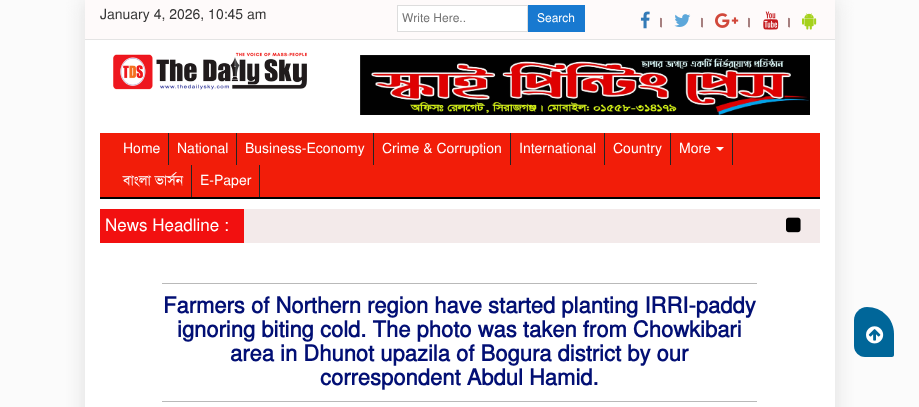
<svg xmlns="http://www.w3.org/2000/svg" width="919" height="407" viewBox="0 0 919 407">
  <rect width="100%" height="100%" fill="rgb(251,251,251)"/>
  <rect x="85" y="0" width="750" height="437" fill="rgb(221,221,221)" filter="blur(10px)"/>
  <rect x="85" y="40" width="750" height="367" fill="rgb(255,255,255)"/>
  <rect x="85" y="0" width="750" height="39" fill="rgb(254,250,250)"/>
  <rect x="85" y="39" width="750" height="1" fill="rgb(228,228,228)"/>
  <text x="100" y="19" font-family="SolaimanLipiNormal" font-size="14" fill="rgb(51,51,51)">January 4, 2026, 10:45 am</text>
  <rect x="397.5" y="5.5" width="130" height="26" fill="rgb(255,255,255)" stroke="rgb(221,221,221)"/>
  <text x="402" y="22" font-family="SolaimanLipiNormal" font-size="12" fill="rgb(117,117,117)">Write Here..</text>
  <rect x="528" y="5" width="57" height="27" fill="rgb(24,121,208)"/>
  <text x="537" y="22" font-family="SolaimanLipiNormal" font-size="12" fill="rgb(255,255,255)">Search</text>
  <image x="640" y="11" width="10" height="18" href="pic1.png"/>
  <text x="656" y="27" font-family="SolaimanLipiNormal" font-size="17" fill="rgb(77,2,2)">।</text>
  <image x="674" y="14" width="17" height="13" href="pic2.png"/>
  <text x="697" y="27" font-family="SolaimanLipiNormal" font-size="17" fill="rgb(77,2,2)">।</text>
  <image x="715" y="13" width="24" height="15" href="pic3.png"/>
  <text x="744" y="27" font-family="SolaimanLipiNormal" font-size="17" fill="rgb(77,2,2)">।</text>
  <image x="763" y="11" width="16" height="19" href="pic4.png"/>
  <text x="784" y="27" font-family="SolaimanLipiNormal" font-size="17" fill="rgb(77,2,2)">।</text>
  <image x="802" y="13" width="15" height="17" href="pic5.png"/>
  <image x="113" y="52" width="194" height="38" href="pic6.png"/>
  <image x="360" y="55" width="450" height="60" href="pic7.png"/>
  <rect x="100" y="133" width="720" height="64" fill="rgb(242,29,9)"/>
  <rect x="100" y="197" width="720" height="2" fill="rgb(0,0,0)"/>
  <rect x="168" y="133" width="1" height="32" fill="rgb(36,36,36)"/>
  <text x="123" y="153" font-family="SolaimanLipiNormal" font-size="14" fill="rgb(255,255,255)">Home</text>
  <rect x="236" y="133" width="1" height="32" fill="rgb(36,36,36)"/>
  <text x="177" y="153" font-family="SolaimanLipiNormal" font-size="14" fill="rgb(255,255,255)">National</text>
  <rect x="373" y="133" width="1" height="32" fill="rgb(36,36,36)"/>
  <text x="245" y="153" font-family="SolaimanLipiNormal" font-size="14" fill="rgb(255,255,255)">Business-Economy</text>
  <rect x="510" y="133" width="1" height="32" fill="rgb(36,36,36)"/>
  <text x="382" y="153" font-family="SolaimanLipiNormal" font-size="14" fill="rgb(255,255,255)">Crime &amp; Corruption</text>
  <rect x="604" y="133" width="1" height="32" fill="rgb(36,36,36)"/>
  <text x="519" y="153" font-family="SolaimanLipiNormal" font-size="14" fill="rgb(255,255,255)">International</text>
  <rect x="670" y="133" width="1" height="32" fill="rgb(36,36,36)"/>
  <text x="613" y="153" font-family="SolaimanLipiNormal" font-size="14" fill="rgb(255,255,255)">Country</text>
  <rect x="732" y="133" width="1" height="32" fill="rgb(36,36,36)"/>
  <text x="679" y="153" font-family="SolaimanLipiNormal" font-size="14" fill="rgb(255,255,255)">More</text>
  <path d="M716 147H724L720 151Z" fill="rgb(255,255,255)"/>
  <rect x="191" y="165" width="1" height="32" fill="rgb(36,36,36)"/>
  <text x="123" y="185" font-family="SolaimanLipiNormal" font-size="14" fill="rgb(255,255,255)">বাংলা ভার্সন</text>
  <rect x="259" y="165" width="1" height="32" fill="rgb(36,36,36)"/>
  <text x="200" y="185" font-family="SolaimanLipiNormal" font-size="14" fill="rgb(255,255,255)">E-Paper</text>
  <rect x="100" y="209" width="144" height="34" fill="rgb(242,16,16)"/>
  <text x="105" y="231" font-family="SolaimanLipiNormal" font-size="17" fill="rgb(255,255,255)">News Headline :</text>
  <rect x="244" y="209" width="576" height="34" fill="rgb(243,234,234)"/>
  <image x="786" y="217" width="15" height="16" href="pic8.png"/>
  <rect x="162" y="283" width="595" height="1" fill="rgb(185,185,185)"/>
  <rect x="162" y="401" width="595" height="1" fill="rgb(185,185,185)"/>
  <g font-family="SolaimanLipiNormal" font-size="22" font-weight="bold" fill="rgb(2,15,116)">
    <text x="163" y="313">Farmers of Northern region have started planting IRRI-paddy</text>
    <text x="177" y="337">ignoring biting cold. The photo was taken from Chowkibari</text>
    <text x="230" y="361">area in Dhunot upazila of Bogura district by our</text>
    <text x="320" y="385">correspondent Abdul Hamid.</text>
  </g>
  <path d="M867 307C882 307 894 319 894 334V355C894 356 893 357 892 357H865C859 357 854 352 854 346V320C854 313 860 307 867 307Z" fill="rgb(0,102,153)"/>
  <image x="866" y="326" width="18" height="18" href="pic9.png"/>
</svg>
